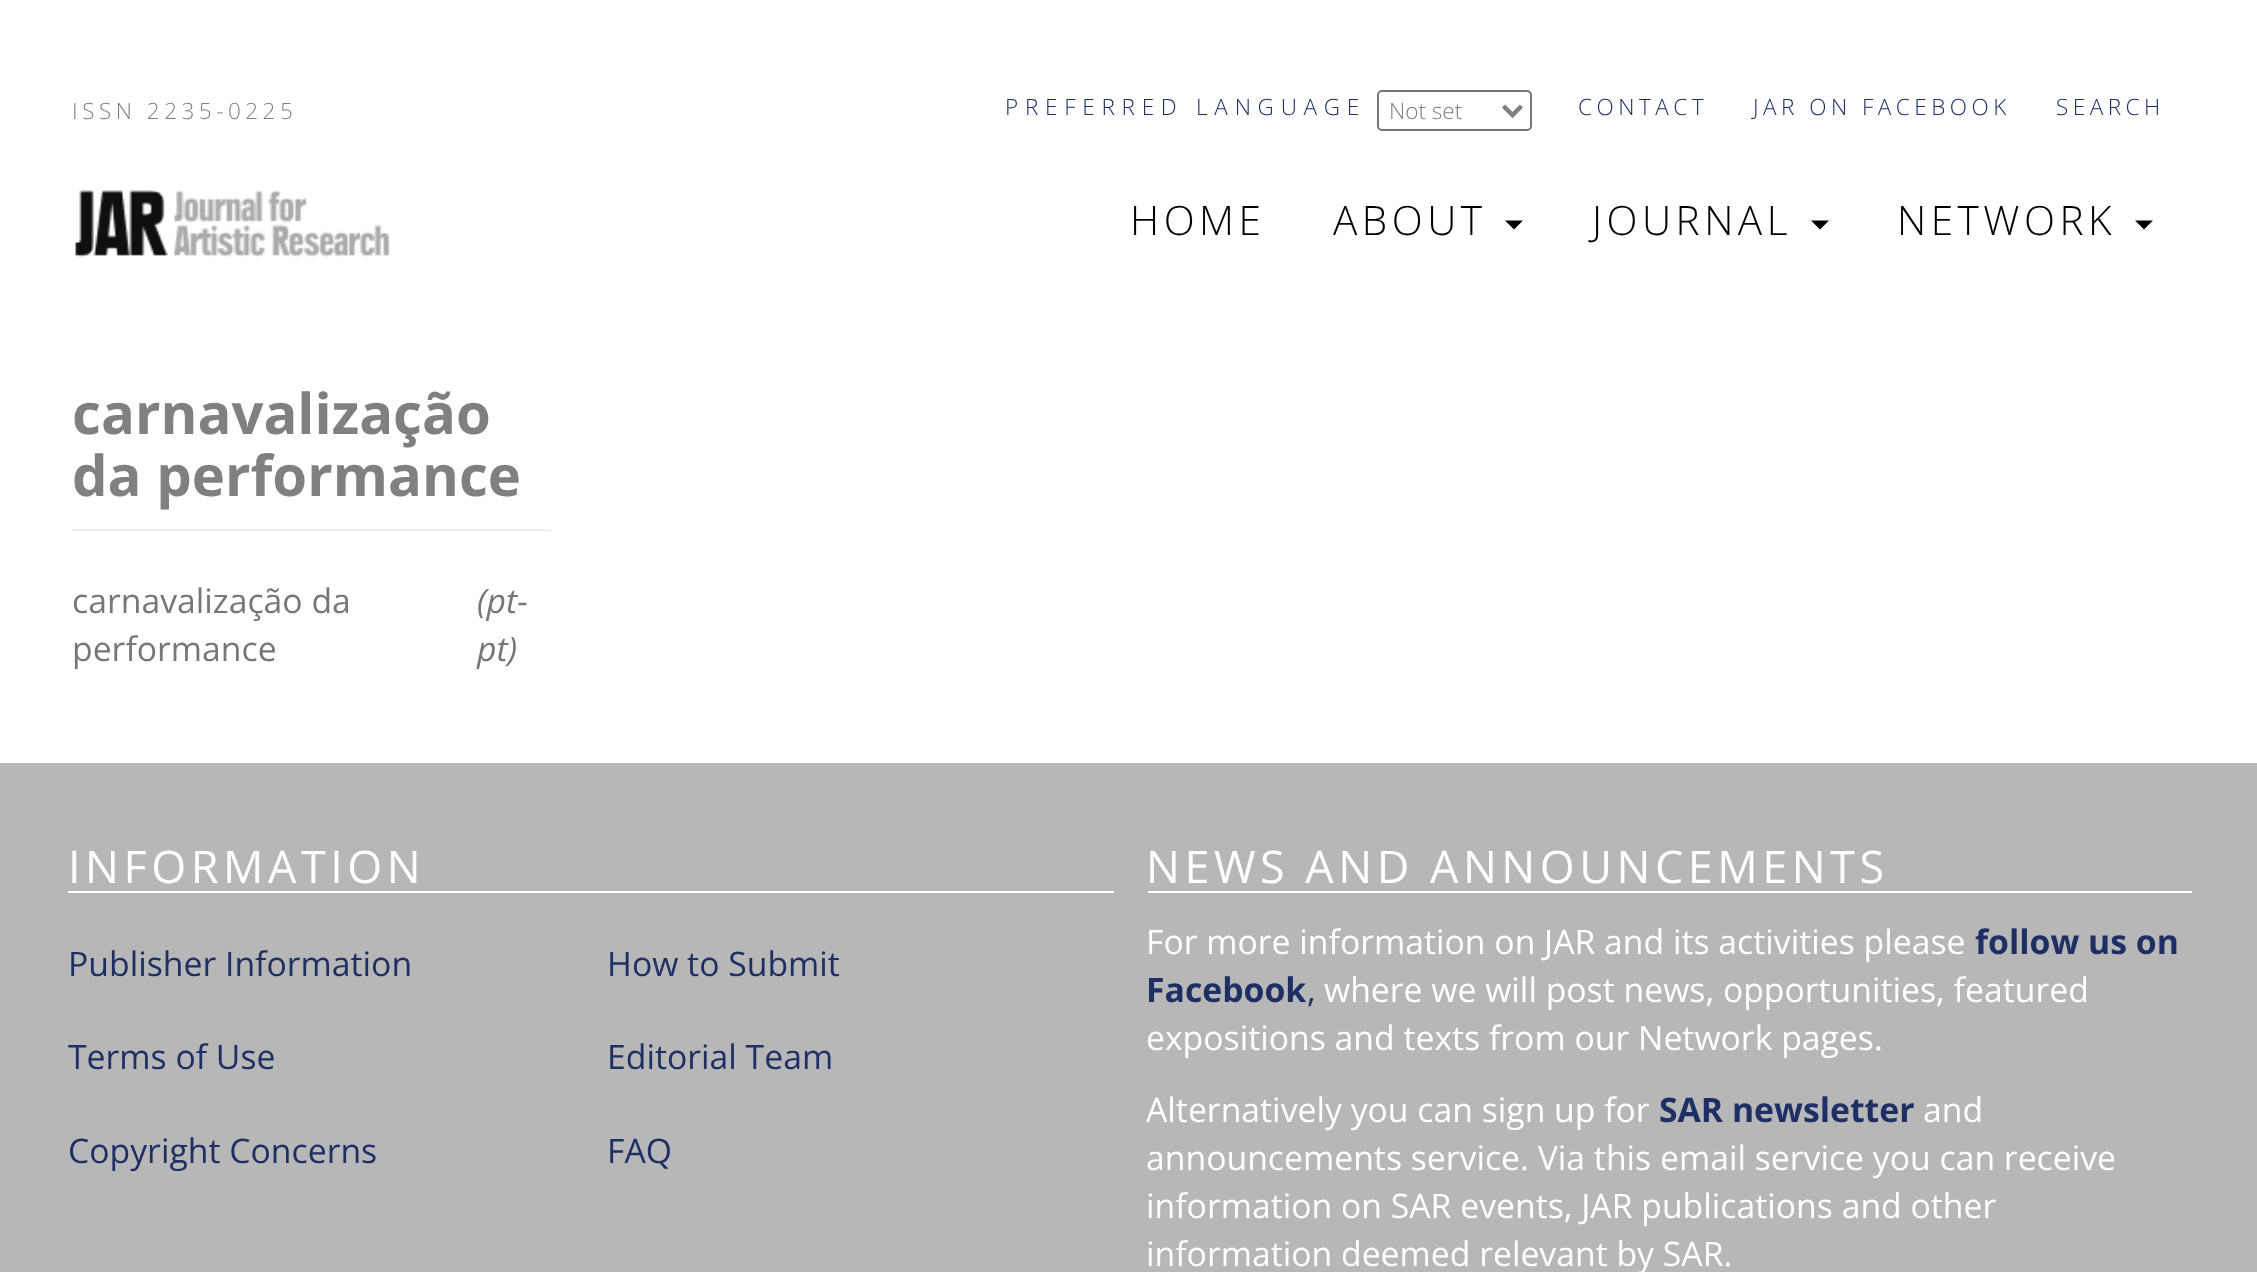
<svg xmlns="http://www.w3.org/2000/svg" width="2257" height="1272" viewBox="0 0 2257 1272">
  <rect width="100%" height="100%" fill="rgb(255,255,255)"/>
  <text x="72" y="119" font-family="Open Sans" font-size="22.5" font-weight="300" letter-spacing="4.5" fill="rgb(128,128,128)">ISSN 2235-0225</text>
  <text x="1005" y="115" font-family="Open Sans" font-size="22.5" font-weight="300" letter-spacing="6.75" fill="rgb(29,47,101)">PREFERRED LANGUAGE</text>
  <rect x="1378" y="91" width="153" height="39" rx="4" fill="none" stroke="rgb(118,118,118)" stroke-width="2"/>
  <path d="M1503.5 106L1512.5 115L1521.5 106" fill="none" stroke="rgb(128,128,128)" stroke-width="4.5"/>
  <text x="1389" y="119" font-family="Open Sans" font-size="22.5" font-weight="300" fill="rgb(128,128,128)">Not set</text>
  <g font-family="Open Sans" font-size="22.5" font-weight="300" letter-spacing="4.5" fill="rgb(29,47,101)">
    <text x="1578" y="115">CONTACT</text>
    <text x="1753" y="115">JAR ON FACEBOOK</text>
    <text x="2056" y="115">SEARCH</text>
  </g>
  <image x="75" y="190" width="315" height="68" href="pic1.png"/>
  <g font-family="Open Sans" font-size="40.5" font-weight="300" letter-spacing="4.5" fill="rgb(0,0,0)">
    <text x="1130" y="235">HOME</text>
    <text x="1333" y="235">ABOUT</text>
  </g>
  <path d="M1505 220.5H1523L1514 229.5Z" fill="rgb(0,0,0)"/>
  <text x="1592" y="235" font-family="Open Sans" font-size="40.5" font-weight="300" letter-spacing="4.5" fill="rgb(0,0,0)">JOURNAL</text>
  <path d="M1811 220.5H1829L1820 229.5Z" fill="rgb(0,0,0)"/>
  <text x="1897" y="235" font-family="Open Sans" font-size="40.5" font-weight="300" letter-spacing="4.5" fill="rgb(0,0,0)">NETWORK</text>
  <path d="M2135 220.5H2153L2144 229.5Z" fill="rgb(0,0,0)"/>
  <rect x="72" y="529" width="479" height="2" fill="rgb(238,238,238)"/>
  <g font-family="Open Sans" font-size="56.25" font-weight="bold" fill="rgb(128,128,128)">
    <text>
      <tspan x="72" y="434">carnavalização</tspan>
      <tspan x="72" y="496">da performance</tspan>
    </text>
  </g>
  <g font-family="Open Sans" font-size="33.75" fill="rgb(119,119,119)">
    <text>
      <tspan x="72" y="613">carnavalização da</tspan>
      <tspan x="72" y="661">performance</tspan>
    </text>
  </g>
  <g font-family="Open Sans" font-size="33.75" font-style="italic" fill="rgb(119,119,119)">
    <text>
      <tspan x="477" y="613">(pt-</tspan>
      <tspan x="477" y="661">pt)</tspan>
    </text>
  </g>
  <rect x="0" y="763" width="2257" height="509" fill="rgb(183,183,183)"/>
  <rect x="68" y="891" width="1046" height="2" fill="rgb(255,255,255)"/>
  <text x="68" y="883" font-family="Open Sans" font-size="45" letter-spacing="4.5" fill="rgb(255,255,255)">INFORMATION</text>
  <g font-family="Open Sans" font-size="33.75" fill="rgb(29,47,101)">
    <text x="68" y="976">Publisher Information</text>
    <text x="607" y="976">How to Submit</text>
    <text x="68" y="1069">Terms of Use</text>
    <text x="607" y="1069">Editorial Team</text>
    <text x="68" y="1163">Copyright Concerns</text>
    <text x="607" y="1163">FAQ</text>
  </g>
  <rect x="1148" y="891" width="1044" height="2" fill="rgb(255,255,255)"/>
  <text x="1146" y="883" font-family="Open Sans" font-size="45" letter-spacing="4.5" fill="rgb(255,255,255)">NEWS AND ANNOUNCEMENTS</text>
  <text x="1146" y="954" font-family="Open Sans" font-size="33.75" fill="rgb(255,255,255)">For more information on JAR and its activities please</text>
  <g font-family="Open Sans" font-size="33.75" font-weight="bold" fill="rgb(29,47,101)">
    <text x="1975" y="954">follow us on</text>
    <text x="1146" y="1002">Facebook</text>
  </g>
  <text x="1307" y="1002" font-family="Open Sans" font-size="33.75" fill="rgb(29,47,101)">,</text>
  <g font-family="Open Sans" font-size="33.75" fill="rgb(255,255,255)">
    <text x="1324" y="1002">where we will post news, opportunities, featured</text>
    <text x="1146" y="1050">expositions and texts from our Network pages.</text>
    <text x="1146" y="1122">Alternatively you can sign up for</text>
  </g>
  <text x="1659" y="1122" font-family="Open Sans" font-size="33.75" font-weight="bold" fill="rgb(29,47,101)">SAR newsletter</text>
  <g font-family="Open Sans" font-size="33.75" fill="rgb(255,255,255)">
    <text x="1923" y="1122">and</text>
    <text>
      <tspan x="1146" y="1170">announcements service. Via this email service you can receive</tspan>
      <tspan x="1146" y="1218">information on SAR events, JAR publications and other</tspan>
      <tspan x="1146" y="1266">information deemed relevant by SAR.</tspan>
    </text>
  </g>
</svg>
